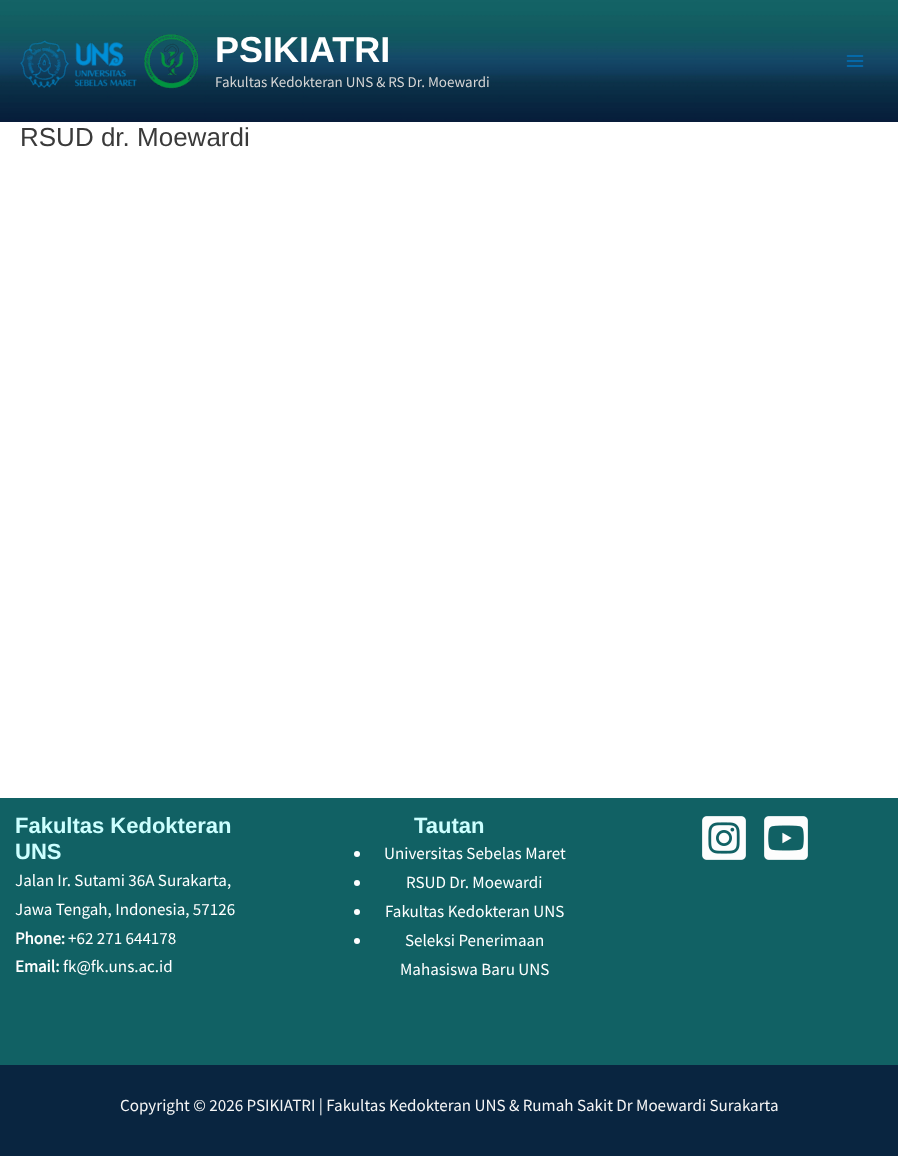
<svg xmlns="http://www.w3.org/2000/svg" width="898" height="1156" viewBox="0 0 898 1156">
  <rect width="100%" height="100%" fill="rgb(255,255,255)"/>
  <image x="0" y="0" width="898" height="122" href="pic1.png"/>
  <image x="20" y="34" width="178" height="55" href="pic2.png"/>
  <text x="215" y="62" font-family="Liberation Sans" font-size="36" font-weight="bold" fill="rgb(255,255,255)">PSIKIATRI</text>
  <text x="215" y="87" font-family="Source Sans Pro" font-size="15" fill="rgb(213,213,213)">Fakultas Kedokteran UNS &amp; RS Dr. Moewardi</text>
  <image x="846" y="55" width="18" height="12" href="pic3.png"/>
  <text x="20" y="146" font-family="Liberation Sans" font-size="26" fill="rgb(58,58,58)">RSUD dr. Moewardi</text>
  <rect x="0" y="798" width="898" height="267" fill="rgb(17,97,100)"/>
  <g font-family="Liberation Sans" font-size="22" font-weight="bold" fill="rgb(204,255,255)">
    <text>
      <tspan x="15" y="833">Fakultas Kedokteran</tspan>
      <tspan x="15" y="859">UNS</tspan>
    </text>
  </g>
  <g font-family="Source Sans Pro" font-size="17" fill="rgb(255,255,255)">
    <text>
      <tspan x="15" y="886">Jalan Ir. Sutami 36A Surakarta,</tspan>
      <tspan x="15" y="915">Jawa Tengah, Indonesia, 57126</tspan>
    </text>
  </g>
  <text x="15" y="944" font-family="Source Sans Pro" font-size="17" font-weight="bold" fill="rgb(255,255,255)">Phone:</text>
  <text x="68" y="944" font-family="Source Sans Pro" font-size="17" fill="rgb(255,255,255)">+62 271 644178</text>
  <text x="15" y="972" font-family="Source Sans Pro" font-size="17" font-weight="bold" fill="rgb(255,255,255)">Email:</text>
  <text x="63" y="972" font-family="Source Sans Pro" font-size="17" fill="rgb(255,255,255)">fk@fk.uns.ac.id</text>
  <text x="414" y="833" font-family="Liberation Sans" font-size="22" font-weight="bold" fill="rgb(204,255,255)">Tautan</text>
  <circle cx="357" cy="854" r="3" fill="rgb(254,254,255)"/>
  <text x="384" y="859" font-family="Source Sans Pro" font-size="17" fill="rgb(255,255,255)">Universitas Sebelas Maret</text>
  <circle cx="357" cy="883" r="3" fill="rgb(254,254,255)"/>
  <text x="406" y="888" font-family="Source Sans Pro" font-size="17" fill="rgb(255,255,255)">RSUD Dr. Moewardi</text>
  <circle cx="357" cy="912" r="3" fill="rgb(254,254,255)"/>
  <text x="385" y="917" font-family="Source Sans Pro" font-size="17" fill="rgb(255,255,255)">Fakultas Kedokteran UNS</text>
  <circle cx="357" cy="941" r="3" fill="rgb(254,254,255)"/>
  <g font-family="Source Sans Pro" font-size="17" fill="rgb(255,255,255)">
    <text x="405" y="946">Seleksi Penerimaan</text>
    <text x="400" y="975">Mahasiswa Baru UNS</text>
  </g>
  <image x="702" y="816" width="44" height="44" href="pic4.png"/>
  <image x="764" y="816" width="44" height="44" href="pic5.png"/>
  <rect x="0" y="1065" width="898" height="91" fill="rgb(9,37,64)"/>
  <text x="120" y="1111" font-family="Source Sans Pro" font-size="17" fill="rgb(245,245,245)">Copyright © 2026 PSIKIATRI | Fakultas Kedokteran UNS &amp; Rumah Sakit Dr Moewardi Surakarta</text>
</svg>
